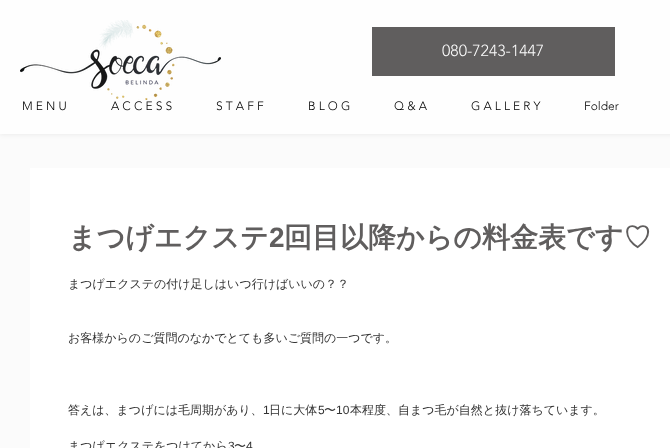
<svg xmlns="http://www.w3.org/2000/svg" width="670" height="448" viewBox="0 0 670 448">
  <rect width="100%" height="100%" fill="rgb(251,251,251)"/>
  <rect x="0" y="1" width="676" height="134" fill="rgba(0,0,0,0.06)" filter="blur(2px)"/>
  <rect x="0" y="0" width="670" height="134" fill="rgb(254,254,254)"/>
  <image x="20" y="20" width="201" height="80" href="pic1.png"/>
  <rect x="372" y="27" width="243" height="49" fill="rgb(96,94,94)"/>
  <text x="442" y="56" font-family="'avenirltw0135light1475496'" font-size="16" font-weight="300" fill="rgb(251,251,251)">080-7243-1447</text>
  <g font-family="'avenirltw0135light1475496'" font-size="12" font-weight="300" fill="rgb(0,0,0)">
    <text x="22" y="110">M E N U</text>
    <text x="111" y="110">A C C E S S</text>
    <text x="216" y="110">S T A F F</text>
    <text x="308" y="110">B L O G</text>
    <text x="394" y="110">Q &amp; A</text>
    <text x="471" y="110">G A L L E R Y</text>
    <text x="584" y="110">Folder</text>
  </g>
  <rect x="30" y="168" width="640" height="280" fill="rgb(255,255,255)"/>
  <text x="68" y="247" font-family="WenQuanYi Zen Hei" font-size="28" font-weight="bold" fill="rgb(96,94,94)">まつげエクステ</text>
  <text x="269" y="247" font-family="Liberation Sans" font-size="28" font-weight="bold" fill="rgb(96,94,94)">2</text>
  <text x="284" y="247" font-family="WenQuanYi Zen Hei" font-size="28" font-weight="bold" fill="rgb(96,94,94)">回目以降からの料金表です♡</text>
  <g font-family="WenQuanYi Zen Hei" font-size="12" font-weight="500" fill="rgb(51,51,51)">
    <text x="68" y="288">まつげエクステの付け足しはいつ行けばいいの？？</text>
    <text x="68" y="342">お客様からのご質問のなかでとても多いご質問の一つです。</text>
    <text x="68" y="414">答えは、まつげには毛周期があり、</text>
  </g>
  <text x="263" y="414" font-family="Liberation Sans" font-size="12" fill="rgb(51,51,51)">1</text>
  <text x="269" y="414" font-family="WenQuanYi Zen Hei" font-size="12" font-weight="500" fill="rgb(51,51,51)">日に大体</text>
  <text x="318" y="414" font-family="Liberation Sans" font-size="12" fill="rgb(51,51,51)">5</text>
  <text x="324" y="414" font-family="WenQuanYi Zen Hei" font-size="12" font-weight="500" fill="rgb(51,51,51)">〜</text>
  <text x="336" y="414" font-family="Liberation Sans" font-size="12" fill="rgb(51,51,51)">10</text>
  <g font-family="WenQuanYi Zen Hei" font-size="12" font-weight="500" fill="rgb(51,51,51)">
    <text x="350" y="414">本程度、自まつ毛が自然と抜け落ちています。</text>
    <text x="68" y="450">まつげエクステをつけてから</text>
  </g>
  <text x="228" y="450" font-family="Liberation Sans" font-size="12" fill="rgb(51,51,51)">3</text>
  <text x="234" y="450" font-family="WenQuanYi Zen Hei" font-size="12" font-weight="500" fill="rgb(51,51,51)">〜</text>
  <text x="246" y="450" font-family="Liberation Sans" font-size="12" fill="rgb(51,51,51)">4</text>
</svg>
